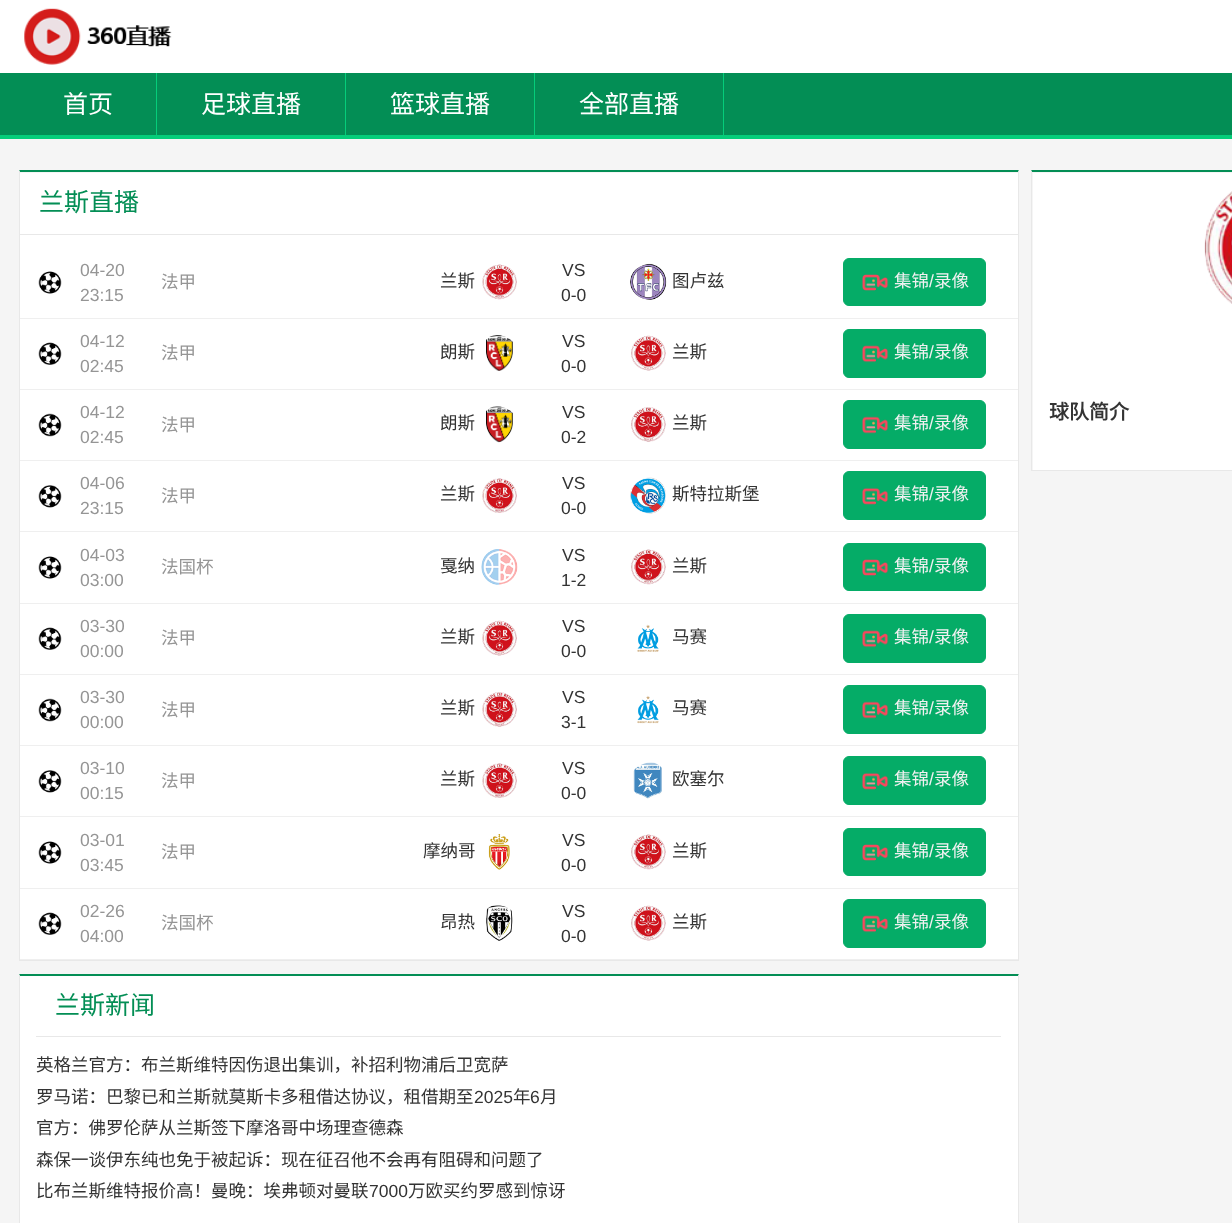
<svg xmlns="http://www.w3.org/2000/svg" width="1232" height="1223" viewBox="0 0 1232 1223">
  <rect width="100%" height="100%" fill="rgb(245,245,245)"/>
  <rect x="0" y="0" width="1232" height="73" fill="rgb(255,255,255)"/>
  <image x="24" y="8" width="148" height="57" href="pic1.png"/>
  <rect x="0" y="73" width="1232" height="62" fill="rgb(3,142,85)"/>
  <rect x="0" y="135" width="1232" height="4" fill="rgb(5,205,122)"/>
  <rect x="156" y="73" width="1" height="62" fill="rgb(5,205,122)"/>
  <text x="63" y="113" font-family="Noto Sans CJK SC" font-size="25" fill="rgb(255,255,255)">首页</text>
  <rect x="345" y="73" width="1" height="62" fill="rgb(5,205,122)"/>
  <text x="201" y="113" font-family="Noto Sans CJK SC" font-size="25" fill="rgb(255,255,255)">足球直播</text>
  <rect x="534" y="73" width="1" height="62" fill="rgb(5,205,122)"/>
  <text x="390" y="113" font-family="Noto Sans CJK SC" font-size="25" fill="rgb(255,255,255)">篮球直播</text>
  <rect x="723" y="73" width="1" height="62" fill="rgb(5,205,122)"/>
  <text x="579" y="113" font-family="Noto Sans CJK SC" font-size="25" fill="rgb(255,255,255)">全部直播</text>
  <rect x="20" y="173" width="998" height="786" fill="rgb(255,255,255)"/>
  <path d="M19 170H1019L1018 172H20Z" fill="rgb(3,142,85)"/>
  <path d="M1019 170V961L1018 960V172Z" fill="rgb(232,232,232)"/>
  <rect x="19" y="960" width="1000" height="1" fill="rgb(232,232,232)"/>
  <path d="M19 961V170L20 172V960Z" fill="rgb(232,232,232)"/>
  <rect x="20" y="234" width="998" height="1" fill="rgb(232,232,232)"/>
  <text x="39" y="211" font-family="Noto Sans CJK SC" font-size="25" fill="rgb(3,142,85)">兰斯直播</text>
  <rect x="20" y="318" width="998" height="1" fill="rgb(239,239,239)"/>
  <image x="38" y="271" width="24" height="23" href="pic2.png"/>
  <g font-family="Liberation Sans" font-size="17.5" fill="rgb(149,149,149)">
    <text>
      <tspan x="80" y="276">04-20</tspan>
      <tspan x="80" y="301">23:15</tspan>
    </text>
  </g>
  <text x="161" y="288" font-family="Noto Sans CJK SC" font-size="17.5" fill="rgb(149,149,149)">法甲</text>
  <text x="440" y="287" font-family="Noto Sans CJK SC" font-size="17.5" fill="rgb(51,51,51)">兰斯</text>
  <image x="482" y="264" width="35" height="36" href="pic3.png"/>
  <g font-family="Liberation Sans" font-size="17.5" fill="rgb(51,51,51)">
    <text x="562" y="276">VS</text>
    <text x="561" y="301">0-0</text>
  </g>
  <image x="630" y="263" width="37" height="37" href="pic4.png"/>
  <text x="672" y="287" font-family="Noto Sans CJK SC" font-size="17.5" fill="rgb(51,51,51)">图卢兹</text>
  <rect x="843.5" y="258.5" width="142" height="47" rx="5.5" fill="rgb(5,172,103)" stroke="rgb(5,172,103)"/>
  <image x="862" y="274" width="27" height="17" href="pic5.png"/>
  <text x="894" y="287" font-family="Noto Sans CJK SC" font-size="17.5" fill="rgb(241,241,241)">集锦</text>
  <text x="929" y="287" font-family="Liberation Sans" font-size="17.5" fill="rgb(241,241,241)">/</text>
  <text x="934" y="287" font-family="Noto Sans CJK SC" font-size="17.5" fill="rgb(241,241,241)">录像</text>
  <rect x="20" y="389" width="998" height="1" fill="rgb(239,239,239)"/>
  <image x="38" y="342" width="24" height="23" href="pic6.png"/>
  <g font-family="Liberation Sans" font-size="17.5" fill="rgb(149,149,149)">
    <text>
      <tspan x="80" y="347">04-12</tspan>
      <tspan x="80" y="372">02:45</tspan>
    </text>
  </g>
  <text x="161" y="359" font-family="Noto Sans CJK SC" font-size="17.5" fill="rgb(149,149,149)">法甲</text>
  <text x="440" y="358" font-family="Noto Sans CJK SC" font-size="17.5" fill="rgb(51,51,51)">朗斯</text>
  <image x="486" y="335" width="27" height="36" href="pic7.png"/>
  <g font-family="Liberation Sans" font-size="17.5" fill="rgb(51,51,51)">
    <text x="562" y="347">VS</text>
    <text x="561" y="372">0-0</text>
  </g>
  <image x="631" y="335" width="35" height="36" href="pic8.png"/>
  <text x="672" y="358" font-family="Noto Sans CJK SC" font-size="17.5" fill="rgb(51,51,51)">兰斯</text>
  <rect x="843.5" y="329.5" width="142" height="48" rx="5.5" fill="rgb(5,172,103)" stroke="rgb(5,172,103)"/>
  <image x="862" y="345" width="27" height="18" href="pic9.png"/>
  <text x="894" y="358" font-family="Noto Sans CJK SC" font-size="17.5" fill="rgb(241,241,241)">集锦</text>
  <text x="929" y="358" font-family="Liberation Sans" font-size="17.5" fill="rgb(241,241,241)">/</text>
  <text x="934" y="358" font-family="Noto Sans CJK SC" font-size="17.5" fill="rgb(241,241,241)">录像</text>
  <rect x="20" y="460" width="998" height="1" fill="rgb(239,239,239)"/>
  <image x="38" y="413" width="24" height="24" href="pic10.png"/>
  <g font-family="Liberation Sans" font-size="17.5" fill="rgb(149,149,149)">
    <text>
      <tspan x="80" y="418">04-12</tspan>
      <tspan x="80" y="443">02:45</tspan>
    </text>
  </g>
  <text x="161" y="431" font-family="Noto Sans CJK SC" font-size="17.5" fill="rgb(149,149,149)">法甲</text>
  <text x="440" y="429" font-family="Noto Sans CJK SC" font-size="17.5" fill="rgb(51,51,51)">朗斯</text>
  <image x="486" y="406" width="27" height="37" href="pic11.png"/>
  <g font-family="Liberation Sans" font-size="17.5" fill="rgb(51,51,51)">
    <text x="562" y="418">VS</text>
    <text x="561" y="443">0-2</text>
  </g>
  <image x="631" y="407" width="35" height="35" href="pic12.png"/>
  <text x="672" y="429" font-family="Noto Sans CJK SC" font-size="17.5" fill="rgb(51,51,51)">兰斯</text>
  <rect x="843.5" y="400.5" width="142" height="48" rx="5.5" fill="rgb(5,172,103)" stroke="rgb(5,172,103)"/>
  <image x="862" y="416" width="27" height="18" href="pic13.png"/>
  <text x="894" y="429" font-family="Noto Sans CJK SC" font-size="17.5" fill="rgb(241,241,241)">集锦</text>
  <text x="929" y="429" font-family="Liberation Sans" font-size="17.5" fill="rgb(241,241,241)">/</text>
  <text x="934" y="429" font-family="Noto Sans CJK SC" font-size="17.5" fill="rgb(241,241,241)">录像</text>
  <rect x="20" y="531" width="998" height="1" fill="rgb(239,239,239)"/>
  <image x="38" y="485" width="24" height="23" href="pic14.png"/>
  <g font-family="Liberation Sans" font-size="17.5" fill="rgb(149,149,149)">
    <text>
      <tspan x="80" y="489">04-06</tspan>
      <tspan x="80" y="514">23:15</tspan>
    </text>
  </g>
  <text x="161" y="502" font-family="Noto Sans CJK SC" font-size="17.5" fill="rgb(149,149,149)">法甲</text>
  <text x="440" y="500" font-family="Noto Sans CJK SC" font-size="17.5" fill="rgb(51,51,51)">兰斯</text>
  <image x="482" y="478" width="35" height="35" href="pic15.png"/>
  <g font-family="Liberation Sans" font-size="17.5" fill="rgb(51,51,51)">
    <text x="562" y="489">VS</text>
    <text x="561" y="514">0-0</text>
  </g>
  <image x="630" y="477" width="36" height="37" href="pic16.png"/>
  <text x="672" y="500" font-family="Noto Sans CJK SC" font-size="17.5" fill="rgb(51,51,51)">斯特拉斯堡</text>
  <rect x="843.5" y="471.5" width="142" height="48" rx="5.5" fill="rgb(5,172,103)" stroke="rgb(5,172,103)"/>
  <image x="862" y="487" width="27" height="18" href="pic17.png"/>
  <text x="894" y="500" font-family="Noto Sans CJK SC" font-size="17.5" fill="rgb(241,241,241)">集锦</text>
  <text x="929" y="500" font-family="Liberation Sans" font-size="17.5" fill="rgb(241,241,241)">/</text>
  <text x="934" y="500" font-family="Noto Sans CJK SC" font-size="17.5" fill="rgb(241,241,241)">录像</text>
  <rect x="20" y="603" width="998" height="1" fill="rgb(239,239,239)"/>
  <image x="38" y="556" width="24" height="23" href="pic18.png"/>
  <g font-family="Liberation Sans" font-size="17.5" fill="rgb(149,149,149)">
    <text>
      <tspan x="80" y="561">04-03</tspan>
      <tspan x="80" y="586">03:00</tspan>
    </text>
  </g>
  <text x="161" y="573" font-family="Noto Sans CJK SC" font-size="17.5" fill="rgb(149,149,149)">法国杯</text>
  <text x="440" y="572" font-family="Noto Sans CJK SC" font-size="17.5" fill="rgb(51,51,51)">戛纳</text>
  <image x="481" y="549" width="37" height="36" href="pic19.png"/>
  <g font-family="Liberation Sans" font-size="17.5" fill="rgb(51,51,51)">
    <text x="562" y="561">VS</text>
    <text x="561" y="586">1-2</text>
  </g>
  <image x="631" y="549" width="35" height="36" href="pic20.png"/>
  <text x="672" y="572" font-family="Noto Sans CJK SC" font-size="17.5" fill="rgb(51,51,51)">兰斯</text>
  <rect x="843.5" y="543.5" width="142" height="47" rx="5.5" fill="rgb(5,172,103)" stroke="rgb(5,172,103)"/>
  <image x="862" y="559" width="27" height="17" href="pic5.png"/>
  <text x="894" y="572" font-family="Noto Sans CJK SC" font-size="17.5" fill="rgb(241,241,241)">集锦</text>
  <text x="929" y="572" font-family="Liberation Sans" font-size="17.5" fill="rgb(241,241,241)">/</text>
  <text x="934" y="572" font-family="Noto Sans CJK SC" font-size="17.5" fill="rgb(241,241,241)">录像</text>
  <rect x="20" y="674" width="998" height="1" fill="rgb(239,239,239)"/>
  <image x="38" y="627" width="24" height="23" href="pic6.png"/>
  <g font-family="Liberation Sans" font-size="17.5" fill="rgb(149,149,149)">
    <text>
      <tspan x="80" y="632">03-30</tspan>
      <tspan x="80" y="657">00:00</tspan>
    </text>
  </g>
  <text x="161" y="644" font-family="Noto Sans CJK SC" font-size="17.5" fill="rgb(149,149,149)">法甲</text>
  <text x="440" y="643" font-family="Noto Sans CJK SC" font-size="17.5" fill="rgb(51,51,51)">兰斯</text>
  <image x="482" y="620" width="35" height="36" href="pic21.png"/>
  <g font-family="Liberation Sans" font-size="17.5" fill="rgb(51,51,51)">
    <text x="562" y="632">VS</text>
    <text x="561" y="657">0-0</text>
  </g>
  <image x="637" y="624" width="22" height="28" href="pic22.png"/>
  <text x="672" y="643" font-family="Noto Sans CJK SC" font-size="17.5" fill="rgb(51,51,51)">马赛</text>
  <rect x="843.5" y="614.5" width="142" height="48" rx="5.5" fill="rgb(5,172,103)" stroke="rgb(5,172,103)"/>
  <image x="862" y="630" width="27" height="18" href="pic9.png"/>
  <text x="894" y="643" font-family="Noto Sans CJK SC" font-size="17.5" fill="rgb(241,241,241)">集锦</text>
  <text x="929" y="643" font-family="Liberation Sans" font-size="17.5" fill="rgb(241,241,241)">/</text>
  <text x="934" y="643" font-family="Noto Sans CJK SC" font-size="17.5" fill="rgb(241,241,241)">录像</text>
  <rect x="20" y="745" width="998" height="1" fill="rgb(239,239,239)"/>
  <image x="38" y="698" width="24" height="24" href="pic10.png"/>
  <g font-family="Liberation Sans" font-size="17.5" fill="rgb(149,149,149)">
    <text>
      <tspan x="80" y="703">03-30</tspan>
      <tspan x="80" y="728">00:00</tspan>
    </text>
  </g>
  <text x="161" y="716" font-family="Noto Sans CJK SC" font-size="17.5" fill="rgb(149,149,149)">法甲</text>
  <text x="440" y="714" font-family="Noto Sans CJK SC" font-size="17.5" fill="rgb(51,51,51)">兰斯</text>
  <image x="482" y="692" width="35" height="35" href="pic23.png"/>
  <g font-family="Liberation Sans" font-size="17.5" fill="rgb(51,51,51)">
    <text x="562" y="703">VS</text>
    <text x="561" y="728">3-1</text>
  </g>
  <image x="637" y="695" width="22" height="29" href="pic24.png"/>
  <text x="672" y="714" font-family="Noto Sans CJK SC" font-size="17.5" fill="rgb(51,51,51)">马赛</text>
  <rect x="843.5" y="685.5" width="142" height="48" rx="5.5" fill="rgb(5,172,103)" stroke="rgb(5,172,103)"/>
  <image x="862" y="701" width="27" height="18" href="pic13.png"/>
  <text x="894" y="714" font-family="Noto Sans CJK SC" font-size="17.5" fill="rgb(241,241,241)">集锦</text>
  <text x="929" y="714" font-family="Liberation Sans" font-size="17.5" fill="rgb(241,241,241)">/</text>
  <text x="934" y="714" font-family="Noto Sans CJK SC" font-size="17.5" fill="rgb(241,241,241)">录像</text>
  <rect x="20" y="816" width="998" height="1" fill="rgb(239,239,239)"/>
  <image x="38" y="770" width="24" height="23" href="pic14.png"/>
  <g font-family="Liberation Sans" font-size="17.5" fill="rgb(149,149,149)">
    <text>
      <tspan x="80" y="774">03-10</tspan>
      <tspan x="80" y="799">00:15</tspan>
    </text>
  </g>
  <text x="161" y="787" font-family="Noto Sans CJK SC" font-size="17.5" fill="rgb(149,149,149)">法甲</text>
  <text x="440" y="785" font-family="Noto Sans CJK SC" font-size="17.5" fill="rgb(51,51,51)">兰斯</text>
  <image x="482" y="763" width="35" height="35" href="pic25.png"/>
  <g font-family="Liberation Sans" font-size="17.5" fill="rgb(51,51,51)">
    <text x="562" y="774">VS</text>
    <text x="561" y="799">0-0</text>
  </g>
  <image x="633" y="762" width="29" height="37" href="pic26.png"/>
  <text x="672" y="785" font-family="Noto Sans CJK SC" font-size="17.5" fill="rgb(51,51,51)">欧塞尔</text>
  <rect x="843.5" y="756.5" width="142" height="48" rx="5.5" fill="rgb(5,172,103)" stroke="rgb(5,172,103)"/>
  <image x="862" y="772" width="27" height="18" href="pic17.png"/>
  <text x="894" y="785" font-family="Noto Sans CJK SC" font-size="17.5" fill="rgb(241,241,241)">集锦</text>
  <text x="929" y="785" font-family="Liberation Sans" font-size="17.5" fill="rgb(241,241,241)">/</text>
  <text x="934" y="785" font-family="Noto Sans CJK SC" font-size="17.5" fill="rgb(241,241,241)">录像</text>
  <rect x="20" y="888" width="998" height="1" fill="rgb(239,239,239)"/>
  <image x="38" y="841" width="24" height="23" href="pic18.png"/>
  <g font-family="Liberation Sans" font-size="17.5" fill="rgb(149,149,149)">
    <text>
      <tspan x="80" y="846">03-01</tspan>
      <tspan x="80" y="871">03:45</tspan>
    </text>
  </g>
  <text x="161" y="858" font-family="Noto Sans CJK SC" font-size="17.5" fill="rgb(149,149,149)">法甲</text>
  <text x="423" y="857" font-family="Noto Sans CJK SC" font-size="17.5" fill="rgb(51,51,51)">摩纳哥</text>
  <image x="488" y="834" width="22" height="36" href="pic27.png"/>
  <g font-family="Liberation Sans" font-size="17.5" fill="rgb(51,51,51)">
    <text x="562" y="846">VS</text>
    <text x="561" y="871">0-0</text>
  </g>
  <image x="631" y="834" width="35" height="36" href="pic20.png"/>
  <text x="672" y="857" font-family="Noto Sans CJK SC" font-size="17.5" fill="rgb(51,51,51)">兰斯</text>
  <rect x="843.5" y="828.5" width="142" height="47" rx="5.5" fill="rgb(5,172,103)" stroke="rgb(5,172,103)"/>
  <image x="862" y="844" width="27" height="17" href="pic5.png"/>
  <text x="894" y="857" font-family="Noto Sans CJK SC" font-size="17.5" fill="rgb(241,241,241)">集锦</text>
  <text x="929" y="857" font-family="Liberation Sans" font-size="17.5" fill="rgb(241,241,241)">/</text>
  <text x="934" y="857" font-family="Noto Sans CJK SC" font-size="17.5" fill="rgb(241,241,241)">录像</text>
  <rect x="20" y="959" width="998" height="1" fill="rgb(239,239,239)"/>
  <image x="38" y="912" width="24" height="23" href="pic6.png"/>
  <g font-family="Liberation Sans" font-size="17.5" fill="rgb(149,149,149)">
    <text>
      <tspan x="80" y="917">02-26</tspan>
      <tspan x="80" y="942">04:00</tspan>
    </text>
  </g>
  <text x="161" y="929" font-family="Noto Sans CJK SC" font-size="17.5" fill="rgb(149,149,149)">法国杯</text>
  <text x="440" y="928" font-family="Noto Sans CJK SC" font-size="17.5" fill="rgb(51,51,51)">昂热</text>
  <image x="486" y="905" width="27" height="36" href="pic28.png"/>
  <g font-family="Liberation Sans" font-size="17.5" fill="rgb(51,51,51)">
    <text x="562" y="917">VS</text>
    <text x="561" y="942">0-0</text>
  </g>
  <image x="631" y="905" width="35" height="36" href="pic8.png"/>
  <text x="672" y="928" font-family="Noto Sans CJK SC" font-size="17.5" fill="rgb(51,51,51)">兰斯</text>
  <rect x="843.5" y="899.5" width="142" height="48" rx="5.5" fill="rgb(5,172,103)" stroke="rgb(5,172,103)"/>
  <image x="862" y="915" width="27" height="18" href="pic9.png"/>
  <text x="894" y="928" font-family="Noto Sans CJK SC" font-size="17.5" fill="rgb(241,241,241)">集锦</text>
  <text x="929" y="928" font-family="Liberation Sans" font-size="17.5" fill="rgb(241,241,241)">/</text>
  <text x="934" y="928" font-family="Noto Sans CJK SC" font-size="17.5" fill="rgb(241,241,241)">录像</text>
  <rect x="20" y="976" width="998" height="247" fill="rgb(255,255,255)"/>
  <path d="M19 974H1019L1018 976H20Z" fill="rgb(3,142,85)"/>
  <path d="M1019 974V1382L1018 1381V976Z" fill="rgb(232,232,232)"/>
  <path d="M19 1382V974L20 976V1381Z" fill="rgb(232,232,232)"/>
  <rect x="36" y="1036" width="965" height="1" fill="rgb(232,232,232)"/>
  <text x="55" y="1014" font-family="Noto Sans CJK SC" font-size="25" fill="rgb(3,142,85)">兰斯新闻</text>
  <g font-family="Noto Sans CJK SC" font-size="17.5" fill="rgb(51,51,51)">
    <text>
      <tspan x="36" y="1071">英格兰官方：布兰斯维特因伤退出集训，补招利物浦后卫宽萨</tspan>
      <tspan x="36" y="1103">罗马诺：巴黎已和兰斯就莫斯卡多租借达协议，租借期至</tspan>
    </text>
  </g>
  <text x="474" y="1103" font-family="Liberation Sans" font-size="17.5" fill="rgb(51,51,51)">2025</text>
  <text x="513" y="1103" font-family="Noto Sans CJK SC" font-size="17.5" fill="rgb(51,51,51)">年</text>
  <text x="530" y="1103" font-family="Liberation Sans" font-size="17.5" fill="rgb(51,51,51)">6</text>
  <g font-family="Noto Sans CJK SC" font-size="17.5" fill="rgb(51,51,51)">
    <text x="540" y="1103">月</text>
    <text>
      <tspan x="36" y="1134">官方：佛罗伦萨从兰斯签下摩洛哥中场理查德森</tspan>
      <tspan x="36" y="1166">森保一谈伊东纯也免于被起诉：现在征召他不会再有阻碍和问题了</tspan>
      <tspan x="36" y="1197">比布兰斯维特报价高！曼晚：埃弗顿对曼联</tspan>
    </text>
  </g>
  <text x="369" y="1197" font-family="Liberation Sans" font-size="17.5" fill="rgb(51,51,51)">7000</text>
  <text x="408" y="1197" font-family="Noto Sans CJK SC" font-size="17.5" fill="rgb(51,51,51)">万欧买约罗感到惊讶</text>
  <rect x="1033" y="173" width="199" height="297" fill="rgb(255,255,255)"/>
  <path d="M1031 170H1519L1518 172H1032Z" fill="rgb(3,142,85)"/>
  <rect x="1031" y="470" width="201" height="1" fill="rgb(232,232,232)"/>
  <path d="M1031 471V170L1032 172V470Z" fill="rgb(232,232,232)"/>
  <image x="1204" y="191" width="28" height="113" href="pic29.png"/>
  <text x="1049" y="419" font-family="Noto Sans CJK SC" font-size="20" font-weight="bold" fill="rgb(51,51,51)">球队简介</text>
</svg>
